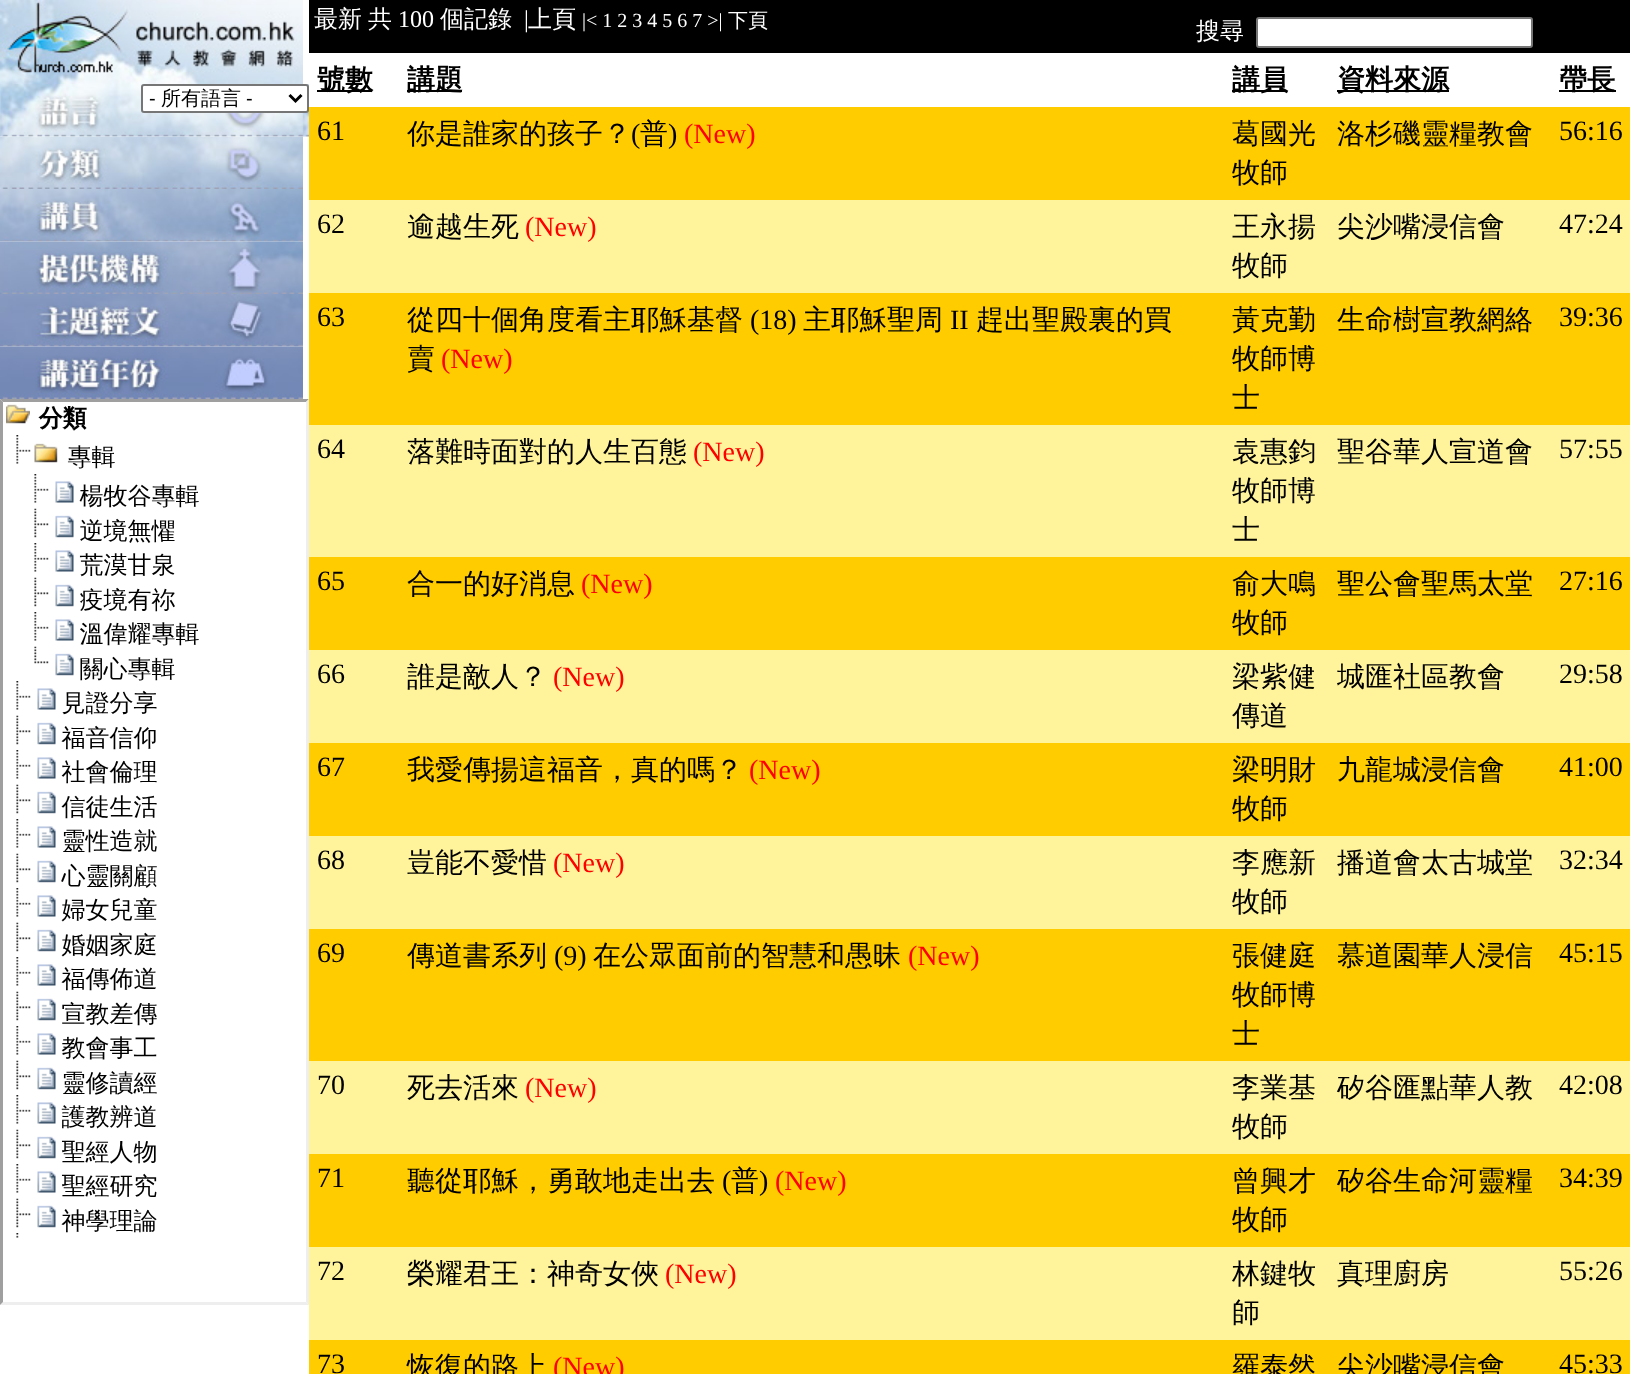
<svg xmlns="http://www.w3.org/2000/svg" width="1630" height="1374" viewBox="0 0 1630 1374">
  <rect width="100%" height="100%" fill="rgb(255,255,255)"/>
  <image x="0" y="0" width="303" height="84" href="pic1.png"/>
  <image x="0" y="84" width="309" height="53" href="pic2.png"/>
  <rect x="142" y="85" width="166" height="27" rx="2" fill="rgb(255,255,255)" stroke="rgb(118,118,118)" stroke-width="2"/>
  <path d="M289.5 95L295.5 101L301.5 95" fill="none" stroke="rgb(0,0,0)" stroke-width="3"/>
  <text x="149" y="105" font-family="Liberation Sans" font-size="20" fill="rgb(0,0,0)">-</text>
  <text x="161" y="105" font-family="WenQuanYi Zen Hei" font-size="20" font-weight="500" fill="rgb(0,0,0)">所有語言</text>
  <text x="246" y="105" font-family="Liberation Sans" font-size="20" fill="rgb(0,0,0)">-</text>
  <image x="0" y="136" width="303" height="53" href="pic3.png"/>
  <image x="0" y="189" width="303" height="53" href="pic4.png"/>
  <image x="0" y="241" width="303" height="53" href="pic5.png"/>
  <image x="0" y="294" width="303" height="53" href="pic6.png"/>
  <image x="0" y="346" width="303" height="53" href="pic7.png"/>
  <path d="M0 399H309L306 402H3Z" fill="rgb(159,159,159)"/>
  <path d="M309 399V1305L306 1302V402Z" fill="rgb(238,238,238)"/>
  <path d="M309 1305H0L3 1302H306Z" fill="rgb(238,238,238)"/>
  <path d="M0 1305V399L3 402V1302Z" fill="rgb(159,159,159)"/>
  <image x="6" y="404" width="193" height="834" href="pic8.png"/>
  <rect x="309" y="0" width="1321" height="53" fill="rgb(0,0,0)"/>
  <g font-family="WenQuanYi Zen Hei" font-size="24" font-weight="500" fill="rgb(255,255,255)">
    <text x="314" y="27">最新</text>
    <text x="368" y="27">共</text>
  </g>
  <text x="398" y="27" font-family="Liberation Serif" font-size="24" fill="rgb(255,255,255)">100</text>
  <text x="440" y="27" font-family="WenQuanYi Zen Hei" font-size="24" font-weight="500" fill="rgb(255,255,255)">個記錄</text>
  <text x="524" y="27" font-family="Liberation Serif" font-size="24" fill="rgb(255,255,255)">|</text>
  <text x="528" y="27" font-family="WenQuanYi Zen Hei" font-size="24" font-weight="500" fill="rgb(255,255,255)">上頁</text>
  <text x="582" y="27" font-family="Liberation Serif" font-size="20" fill="rgb(255,255,255)">|&lt; 1 2 3 4 5 6 7 &gt;|</text>
  <text x="728" y="27" font-family="WenQuanYi Zen Hei" font-size="20" font-weight="500" fill="rgb(255,255,255)">下頁</text>
  <text x="1196" y="39" font-family="WenQuanYi Zen Hei" font-size="24" font-weight="500" fill="rgb(255,255,255)">搜尋</text>
  <rect x="1257" y="18" width="275" height="29" rx="2" fill="rgb(255,255,255)" stroke="rgb(118,118,118)" stroke-width="2"/>
  <rect x="317" y="90" width="55" height="2" fill="rgb(0,0,0)"/>
  <text x="317" y="89" font-family="WenQuanYi Zen Hei" font-size="28" font-weight="bold" fill="rgb(0,0,0)">號數</text>
  <rect x="407" y="90" width="55" height="2" fill="rgb(0,0,0)"/>
  <text x="407" y="89" font-family="WenQuanYi Zen Hei" font-size="28" font-weight="bold" fill="rgb(0,0,0)">講題</text>
  <rect x="1232" y="90" width="55" height="2" fill="rgb(0,0,0)"/>
  <text x="1232" y="89" font-family="WenQuanYi Zen Hei" font-size="28" font-weight="bold" fill="rgb(0,0,0)">講員</text>
  <rect x="1337" y="90" width="112" height="2" fill="rgb(0,0,0)"/>
  <text x="1337" y="89" font-family="WenQuanYi Zen Hei" font-size="28" font-weight="bold" fill="rgb(0,0,0)">資料來源</text>
  <rect x="1559" y="90" width="57" height="2" fill="rgb(0,0,0)"/>
  <text x="1559" y="89" font-family="WenQuanYi Zen Hei" font-size="28" font-weight="bold" fill="rgb(0,0,0)">帶長</text>
  <rect x="309" y="107" width="1321" height="93" fill="rgb(255,204,0)"/>
  <text x="317" y="140" font-family="Liberation Serif" font-size="28" fill="rgb(0,0,0)">61</text>
  <text x="407" y="143" font-family="WenQuanYi Zen Hei" font-size="28" font-weight="500" fill="rgb(0,0,0)">你是誰家的孩子？</text>
  <text x="631" y="143" font-family="Liberation Serif" font-size="28" fill="rgb(0,0,0)">(</text>
  <text x="640" y="143" font-family="WenQuanYi Zen Hei" font-size="28" font-weight="500" fill="rgb(0,0,0)">普</text>
  <text x="668" y="143" font-family="Liberation Serif" font-size="28" fill="rgb(0,0,0)">)</text>
  <text x="684" y="143" font-family="Liberation Serif" font-size="28" fill="rgb(255,0,0)">(New)</text>
  <g font-family="WenQuanYi Zen Hei" font-size="28" font-weight="500" fill="rgb(0,0,0)">
    <text>
      <tspan x="1232" y="143">葛國光</tspan>
      <tspan x="1232" y="182">牧師</tspan>
    </text>
    <text x="1337" y="143">洛杉磯靈糧教會</text>
  </g>
  <text x="1559" y="140" font-family="Liberation Serif" font-size="28" fill="rgb(0,0,0)">56:16</text>
  <rect x="309" y="200" width="1321" height="93" fill="rgb(255,244,155)"/>
  <text x="317" y="233" font-family="Liberation Serif" font-size="28" fill="rgb(0,0,0)">62</text>
  <text x="407" y="236" font-family="WenQuanYi Zen Hei" font-size="28" font-weight="500" fill="rgb(0,0,0)">逾越生死</text>
  <text x="525" y="236" font-family="Liberation Serif" font-size="28" fill="rgb(255,0,0)">(New)</text>
  <g font-family="WenQuanYi Zen Hei" font-size="28" font-weight="500" fill="rgb(0,0,0)">
    <text>
      <tspan x="1232" y="236">王永揚</tspan>
      <tspan x="1232" y="275">牧師</tspan>
    </text>
    <text x="1337" y="236">尖沙嘴浸信會</text>
  </g>
  <text x="1559" y="233" font-family="Liberation Serif" font-size="28" fill="rgb(0,0,0)">47:24</text>
  <rect x="309" y="293" width="1321" height="132" fill="rgb(255,204,0)"/>
  <text x="317" y="326" font-family="Liberation Serif" font-size="28" fill="rgb(0,0,0)">63</text>
  <text x="407" y="329" font-family="WenQuanYi Zen Hei" font-size="28" font-weight="500" fill="rgb(0,0,0)">從四十個角度看主耶穌基督</text>
  <text x="750" y="329" font-family="Liberation Serif" font-size="28" fill="rgb(0,0,0)">(18)</text>
  <text x="803" y="329" font-family="WenQuanYi Zen Hei" font-size="28" font-weight="500" fill="rgb(0,0,0)">主耶穌聖周</text>
  <text x="950" y="329" font-family="Liberation Serif" font-size="28" fill="rgb(0,0,0)">II</text>
  <g font-family="WenQuanYi Zen Hei" font-size="28" font-weight="500" fill="rgb(0,0,0)">
    <text x="976" y="329">趕出聖殿裏的買</text>
    <text x="407" y="368">賣</text>
  </g>
  <text x="441" y="368" font-family="Liberation Serif" font-size="28" fill="rgb(255,0,0)">(New)</text>
  <g font-family="WenQuanYi Zen Hei" font-size="28" font-weight="500" fill="rgb(0,0,0)">
    <text>
      <tspan x="1232" y="329">黃克勤</tspan>
      <tspan x="1232" y="368">牧師博</tspan>
      <tspan x="1232" y="407">士</tspan>
    </text>
    <text x="1337" y="329">生命樹宣教網絡</text>
  </g>
  <text x="1559" y="326" font-family="Liberation Serif" font-size="28" fill="rgb(0,0,0)">39:36</text>
  <rect x="309" y="425" width="1321" height="132" fill="rgb(255,244,155)"/>
  <text x="317" y="458" font-family="Liberation Serif" font-size="28" fill="rgb(0,0,0)">64</text>
  <text x="407" y="461" font-family="WenQuanYi Zen Hei" font-size="28" font-weight="500" fill="rgb(0,0,0)">落難時面對的人生百態</text>
  <text x="693" y="461" font-family="Liberation Serif" font-size="28" fill="rgb(255,0,0)">(New)</text>
  <g font-family="WenQuanYi Zen Hei" font-size="28" font-weight="500" fill="rgb(0,0,0)">
    <text>
      <tspan x="1232" y="461">袁惠鈞</tspan>
      <tspan x="1232" y="500">牧師博</tspan>
      <tspan x="1232" y="539">士</tspan>
    </text>
    <text x="1337" y="461">聖谷華人宣道會</text>
  </g>
  <text x="1559" y="458" font-family="Liberation Serif" font-size="28" fill="rgb(0,0,0)">57:55</text>
  <rect x="309" y="557" width="1321" height="93" fill="rgb(255,204,0)"/>
  <text x="317" y="590" font-family="Liberation Serif" font-size="28" fill="rgb(0,0,0)">65</text>
  <text x="407" y="593" font-family="WenQuanYi Zen Hei" font-size="28" font-weight="500" fill="rgb(0,0,0)">合一的好消息</text>
  <text x="581" y="593" font-family="Liberation Serif" font-size="28" fill="rgb(255,0,0)">(New)</text>
  <g font-family="WenQuanYi Zen Hei" font-size="28" font-weight="500" fill="rgb(0,0,0)">
    <text>
      <tspan x="1232" y="593">俞大鳴</tspan>
      <tspan x="1232" y="632">牧師</tspan>
    </text>
    <text x="1337" y="593">聖公會聖馬太堂</text>
  </g>
  <text x="1559" y="590" font-family="Liberation Serif" font-size="28" fill="rgb(0,0,0)">27:16</text>
  <rect x="309" y="650" width="1321" height="93" fill="rgb(255,244,155)"/>
  <text x="317" y="683" font-family="Liberation Serif" font-size="28" fill="rgb(0,0,0)">66</text>
  <text x="407" y="686" font-family="WenQuanYi Zen Hei" font-size="28" font-weight="500" fill="rgb(0,0,0)">誰是敵人？</text>
  <text x="553" y="686" font-family="Liberation Serif" font-size="28" fill="rgb(255,0,0)">(New)</text>
  <g font-family="WenQuanYi Zen Hei" font-size="28" font-weight="500" fill="rgb(0,0,0)">
    <text>
      <tspan x="1232" y="686">梁紫健</tspan>
      <tspan x="1232" y="725">傳道</tspan>
    </text>
    <text x="1337" y="686">城匯社區教會</text>
  </g>
  <text x="1559" y="683" font-family="Liberation Serif" font-size="28" fill="rgb(0,0,0)">29:58</text>
  <rect x="309" y="743" width="1321" height="93" fill="rgb(255,204,0)"/>
  <text x="317" y="776" font-family="Liberation Serif" font-size="28" fill="rgb(0,0,0)">67</text>
  <text x="407" y="779" font-family="WenQuanYi Zen Hei" font-size="28" font-weight="500" fill="rgb(0,0,0)">我愛傳揚這福音，真的嗎？</text>
  <text x="749" y="779" font-family="Liberation Serif" font-size="28" fill="rgb(255,0,0)">(New)</text>
  <g font-family="WenQuanYi Zen Hei" font-size="28" font-weight="500" fill="rgb(0,0,0)">
    <text>
      <tspan x="1232" y="779">梁明財</tspan>
      <tspan x="1232" y="818">牧師</tspan>
    </text>
    <text x="1337" y="779">九龍城浸信會</text>
  </g>
  <text x="1559" y="776" font-family="Liberation Serif" font-size="28" fill="rgb(0,0,0)">41:00</text>
  <rect x="309" y="836" width="1321" height="93" fill="rgb(255,244,155)"/>
  <text x="317" y="869" font-family="Liberation Serif" font-size="28" fill="rgb(0,0,0)">68</text>
  <text x="407" y="872" font-family="WenQuanYi Zen Hei" font-size="28" font-weight="500" fill="rgb(0,0,0)">豈能不愛惜</text>
  <text x="553" y="872" font-family="Liberation Serif" font-size="28" fill="rgb(255,0,0)">(New)</text>
  <g font-family="WenQuanYi Zen Hei" font-size="28" font-weight="500" fill="rgb(0,0,0)">
    <text>
      <tspan x="1232" y="872">李應新</tspan>
      <tspan x="1232" y="911">牧師</tspan>
    </text>
    <text x="1337" y="872">播道會太古城堂</text>
  </g>
  <text x="1559" y="869" font-family="Liberation Serif" font-size="28" fill="rgb(0,0,0)">32:34</text>
  <rect x="309" y="929" width="1321" height="132" fill="rgb(255,204,0)"/>
  <text x="317" y="962" font-family="Liberation Serif" font-size="28" fill="rgb(0,0,0)">69</text>
  <text x="407" y="965" font-family="WenQuanYi Zen Hei" font-size="28" font-weight="500" fill="rgb(0,0,0)">傳道書系列</text>
  <text x="554" y="965" font-family="Liberation Serif" font-size="28" fill="rgb(0,0,0)">(9)</text>
  <text x="593" y="965" font-family="WenQuanYi Zen Hei" font-size="28" font-weight="500" fill="rgb(0,0,0)">在公眾面前的智慧和愚昧</text>
  <text x="908" y="965" font-family="Liberation Serif" font-size="28" fill="rgb(255,0,0)">(New)</text>
  <g font-family="WenQuanYi Zen Hei" font-size="28" font-weight="500" fill="rgb(0,0,0)">
    <text>
      <tspan x="1232" y="965">張健庭</tspan>
      <tspan x="1232" y="1004">牧師博</tspan>
      <tspan x="1232" y="1043">士</tspan>
    </text>
    <text x="1337" y="965">慕道園華人浸信</text>
  </g>
  <text x="1559" y="962" font-family="Liberation Serif" font-size="28" fill="rgb(0,0,0)">45:15</text>
  <rect x="309" y="1061" width="1321" height="93" fill="rgb(255,244,155)"/>
  <text x="317" y="1094" font-family="Liberation Serif" font-size="28" fill="rgb(0,0,0)">70</text>
  <text x="407" y="1097" font-family="WenQuanYi Zen Hei" font-size="28" font-weight="500" fill="rgb(0,0,0)">死去活來</text>
  <text x="525" y="1097" font-family="Liberation Serif" font-size="28" fill="rgb(255,0,0)">(New)</text>
  <g font-family="WenQuanYi Zen Hei" font-size="28" font-weight="500" fill="rgb(0,0,0)">
    <text>
      <tspan x="1232" y="1097">李業基</tspan>
      <tspan x="1232" y="1136">牧師</tspan>
    </text>
    <text x="1337" y="1097">矽谷匯點華人教</text>
  </g>
  <text x="1559" y="1094" font-family="Liberation Serif" font-size="28" fill="rgb(0,0,0)">42:08</text>
  <rect x="309" y="1154" width="1321" height="93" fill="rgb(255,204,0)"/>
  <text x="317" y="1187" font-family="Liberation Serif" font-size="28" fill="rgb(0,0,0)">71</text>
  <text x="407" y="1190" font-family="WenQuanYi Zen Hei" font-size="28" font-weight="500" fill="rgb(0,0,0)">聽從耶穌，勇敢地走出去</text>
  <text x="722" y="1190" font-family="Liberation Serif" font-size="28" fill="rgb(0,0,0)">(</text>
  <text x="731" y="1190" font-family="WenQuanYi Zen Hei" font-size="28" font-weight="500" fill="rgb(0,0,0)">普</text>
  <text x="759" y="1190" font-family="Liberation Serif" font-size="28" fill="rgb(0,0,0)">)</text>
  <text x="775" y="1190" font-family="Liberation Serif" font-size="28" fill="rgb(255,0,0)">(New)</text>
  <g font-family="WenQuanYi Zen Hei" font-size="28" font-weight="500" fill="rgb(0,0,0)">
    <text>
      <tspan x="1232" y="1190">曾興才</tspan>
      <tspan x="1232" y="1229">牧師</tspan>
    </text>
    <text x="1337" y="1190">矽谷生命河靈糧</text>
  </g>
  <text x="1559" y="1187" font-family="Liberation Serif" font-size="28" fill="rgb(0,0,0)">34:39</text>
  <rect x="309" y="1247" width="1321" height="93" fill="rgb(255,244,155)"/>
  <text x="317" y="1280" font-family="Liberation Serif" font-size="28" fill="rgb(0,0,0)">72</text>
  <text x="407" y="1283" font-family="WenQuanYi Zen Hei" font-size="28" font-weight="500" fill="rgb(0,0,0)">榮耀君王：神奇女俠</text>
  <text x="665" y="1283" font-family="Liberation Serif" font-size="28" fill="rgb(255,0,0)">(New)</text>
  <g font-family="WenQuanYi Zen Hei" font-size="28" font-weight="500" fill="rgb(0,0,0)">
    <text>
      <tspan x="1232" y="1283">林鍵牧</tspan>
      <tspan x="1232" y="1322">師</tspan>
    </text>
    <text x="1337" y="1283">真理廚房</text>
  </g>
  <text x="1559" y="1280" font-family="Liberation Serif" font-size="28" fill="rgb(0,0,0)">55:26</text>
  <rect x="309" y="1340" width="1321" height="34" fill="rgb(255,204,0)"/>
  <text x="317" y="1373" font-family="Liberation Serif" font-size="28" fill="rgb(0,0,0)">73</text>
  <text x="407" y="1376" font-family="WenQuanYi Zen Hei" font-size="28" font-weight="500" fill="rgb(0,0,0)">恢復的路上</text>
  <text x="553" y="1376" font-family="Liberation Serif" font-size="28" fill="rgb(255,0,0)">(New)</text>
  <g font-family="WenQuanYi Zen Hei" font-size="28" font-weight="500" fill="rgb(0,0,0)">
    <text x="1232" y="1376">羅泰然</text>
    <text x="1337" y="1376">尖沙嘴浸信會</text>
  </g>
  <text x="1559" y="1373" font-family="Liberation Serif" font-size="28" fill="rgb(0,0,0)">45:33</text>
</svg>
